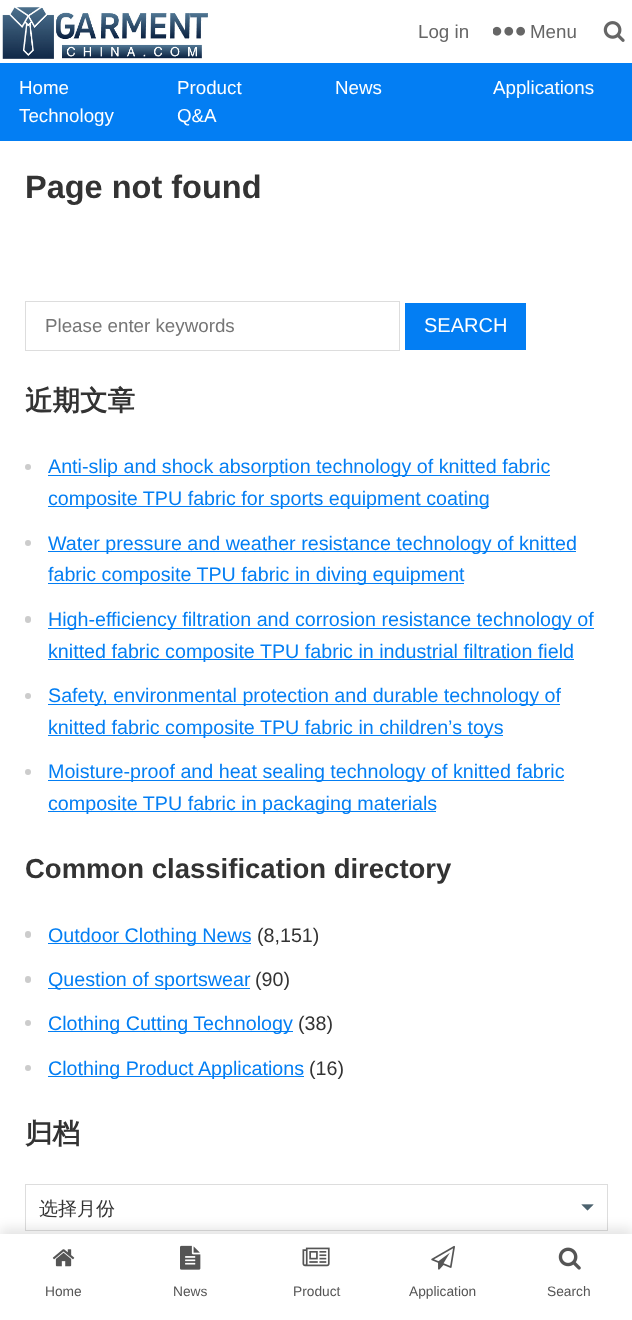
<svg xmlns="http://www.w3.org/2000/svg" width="632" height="1320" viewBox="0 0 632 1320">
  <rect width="100%" height="100%" fill="rgb(255,255,255)"/>
  <image x="2" y="7" width="206" height="52" href="pic1.png"/>
  <text x="418" y="38" font-family="Liberation Sans" font-size="18.75" fill="rgb(102,102,102)">Log in</text>
  <image x="493" y="26" width="32" height="10" href="pic2.png"/>
  <text x="530" y="38" font-family="Liberation Sans" font-size="18.75" fill="rgb(102,102,102)">Menu</text>
  <image x="603" y="21" width="22" height="21" href="pic3.png"/>
  <rect x="0" y="63" width="632" height="78" fill="rgb(3,126,243)"/>
  <g font-family="Liberation Sans" font-size="18.75" fill="rgb(255,255,255)">
    <text x="19" y="94">Home</text>
    <text x="177" y="94">Product</text>
    <text x="335" y="94">News</text>
    <text x="493" y="94">Applications</text>
    <text x="19" y="122">Technology</text>
    <text x="177" y="122">Q&amp;A</text>
  </g>
  <text x="25" y="198" font-family="Liberation Sans" font-size="32.5" font-weight="bold" fill="rgb(51,51,51)">Page not found</text>
  <rect x="25.5" y="301.5" width="374" height="49" fill="none" stroke="rgb(221,221,221)"/>
  <text x="45" y="332" font-family="Liberation Sans" font-size="18.75" fill="rgb(117,117,117)">Please enter keywords</text>
  <rect x="405" y="303" width="121" height="47" fill="rgb(3,126,243)"/>
  <text x="424" y="332" font-family="Liberation Sans" font-size="20" fill="rgb(255,255,255)">SEARCH</text>
  <text x="25" y="410" font-family="WenQuanYi Zen Hei" font-size="27.5" font-weight="bold" fill="rgb(51,51,51)">近期文章</text>
  <circle cx="28" cy="467" r="3" fill="rgb(204,204,204)"/>
  <rect x="48" y="475" width="502" height="1" fill="rgb(3,126,243)"/>
  <text x="48" y="473" font-family="Liberation Sans" font-size="19.7" fill="rgb(3,126,243)">Anti-slip and shock absorption technology of knitted fabric</text>
  <rect x="48" y="506" width="441" height="1" fill="rgb(3,126,243)"/>
  <text x="48" y="505" font-family="Liberation Sans" font-size="19.7" fill="rgb(3,126,243)">composite TPU fabric for sports equipment coating</text>
  <circle cx="28" cy="543" r="3" fill="rgb(204,204,204)"/>
  <rect x="48" y="551" width="528" height="1" fill="rgb(3,126,243)"/>
  <text x="48" y="550" font-family="Liberation Sans" font-size="19.7" fill="rgb(3,126,243)">Water pressure and weather resistance technology of knitted</text>
  <rect x="48" y="583" width="416" height="1" fill="rgb(3,126,243)"/>
  <text x="48" y="581" font-family="Liberation Sans" font-size="19.7" fill="rgb(3,126,243)">fabric composite TPU fabric in diving equipment</text>
  <rect x="25" y="616" width="6" height="7" rx="3" fill="rgb(204,204,204)"/>
  <rect x="48" y="628" width="546" height="1" fill="rgb(3,126,243)"/>
  <text x="48" y="626" font-family="Liberation Sans" font-size="19.7" fill="rgb(3,126,243)">High-efficiency filtration and corrosion resistance technology of</text>
  <rect x="48" y="659" width="526" height="1" fill="rgb(3,126,243)"/>
  <text x="48" y="658" font-family="Liberation Sans" font-size="19.7" fill="rgb(3,126,243)">knitted fabric composite TPU fabric in industrial filtration field</text>
  <circle cx="28" cy="696" r="3" fill="rgb(204,204,204)"/>
  <rect x="48" y="704" width="512" height="1" fill="rgb(3,126,243)"/>
  <text x="48" y="702" font-family="Liberation Sans" font-size="19.7" fill="rgb(3,126,243)">Safety, environmental protection and durable technology of</text>
  <rect x="48" y="735" width="455" height="1" fill="rgb(3,126,243)"/>
  <text x="48" y="734" font-family="Liberation Sans" font-size="19.7" fill="rgb(3,126,243)">knitted fabric composite TPU fabric in children’s toys</text>
  <circle cx="28" cy="772" r="3" fill="rgb(204,204,204)"/>
  <rect x="48" y="780" width="516" height="1" fill="rgb(3,126,243)"/>
  <text x="48" y="778" font-family="Liberation Sans" font-size="19.7" fill="rgb(3,126,243)">Moisture-proof and heat sealing technology of knitted fabric</text>
  <rect x="48" y="811" width="388" height="1" fill="rgb(3,126,243)"/>
  <text x="48" y="810" font-family="Liberation Sans" font-size="19.7" fill="rgb(3,126,243)">composite TPU fabric in packaging materials</text>
  <text x="25" y="878" font-family="Liberation Sans" font-size="27.5" font-weight="bold" fill="rgb(51,51,51)">Common classification directory</text>
  <rect x="25" y="931" width="6" height="7" rx="3" fill="rgb(204,204,204)"/>
  <rect x="48" y="943" width="203" height="1" fill="rgb(3,126,243)"/>
  <text x="48" y="942" font-family="Liberation Sans" font-size="19.7" fill="rgb(3,126,243)">Outdoor Clothing News</text>
  <text x="257" y="942" font-family="Liberation Sans" font-size="19.7" fill="rgb(51,51,51)">(8,151)</text>
  <rect x="25" y="976" width="6" height="7" rx="3" fill="rgb(204,204,204)"/>
  <rect x="48" y="988" width="202" height="1" fill="rgb(3,126,243)"/>
  <text x="48" y="986" font-family="Liberation Sans" font-size="19.7" fill="rgb(3,126,243)">Question of sportswear</text>
  <text x="255" y="986" font-family="Liberation Sans" font-size="19.7" fill="rgb(51,51,51)">(90)</text>
  <circle cx="28" cy="1023" r="3" fill="rgb(204,204,204)"/>
  <rect x="48" y="1031" width="245" height="1" fill="rgb(3,126,243)"/>
  <text x="48" y="1030" font-family="Liberation Sans" font-size="19.7" fill="rgb(3,126,243)">Clothing Cutting Technology</text>
  <text x="298" y="1030" font-family="Liberation Sans" font-size="19.7" fill="rgb(51,51,51)">(38)</text>
  <circle cx="28" cy="1068" r="3" fill="rgb(204,204,204)"/>
  <rect x="48" y="1076" width="256" height="1" fill="rgb(3,126,243)"/>
  <text x="48" y="1075" font-family="Liberation Sans" font-size="19.7" fill="rgb(3,126,243)">Clothing Product Applications</text>
  <text x="309" y="1075" font-family="Liberation Sans" font-size="19.7" fill="rgb(51,51,51)">(16)</text>
  <text x="25" y="1143" font-family="WenQuanYi Zen Hei" font-size="27.5" font-weight="bold" fill="rgb(51,51,51)">归档</text>
  <image x="581" y="1204" width="13" height="7" href="pic4.png"/>
  <rect x="25.5" y="1184.5" width="582" height="46" fill="none" stroke="rgb(221,221,221)"/>
  <text x="39" y="1215" font-family="WenQuanYi Zen Hei" font-size="19" font-weight="500" fill="rgb(51,51,51)">选择月份</text>
  <rect x="0" y="1228" width="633" height="86" fill="rgba(0,0,0,0.1)" filter="blur(6px)"/>
  <rect x="0" y="1234" width="632" height="86" fill="rgb(255,255,255)"/>
  <image x="52" y="1249" width="23" height="18" href="pic5.png"/>
  <text x="45" y="1296" font-family="Liberation Sans" font-size="13.75" fill="rgb(85,85,85)">Home</text>
  <image x="180" y="1245" width="21" height="25" href="pic6.png"/>
  <text x="173" y="1296" font-family="Liberation Sans" font-size="13.75" fill="rgb(85,85,85)">News</text>
  <image x="302" y="1247" width="28" height="20" href="pic7.png"/>
  <text x="293" y="1296" font-family="Liberation Sans" font-size="13.75" fill="rgb(85,85,85)">Product</text>
  <image x="431" y="1245" width="24" height="25" href="pic8.png"/>
  <text x="409" y="1296" font-family="Liberation Sans" font-size="13.75" fill="rgb(85,85,85)">Application</text>
  <image x="558" y="1247" width="23" height="23" href="pic9.png"/>
  <text x="547" y="1296" font-family="Liberation Sans" font-size="13.75" fill="rgb(85,85,85)">Search</text>
</svg>
